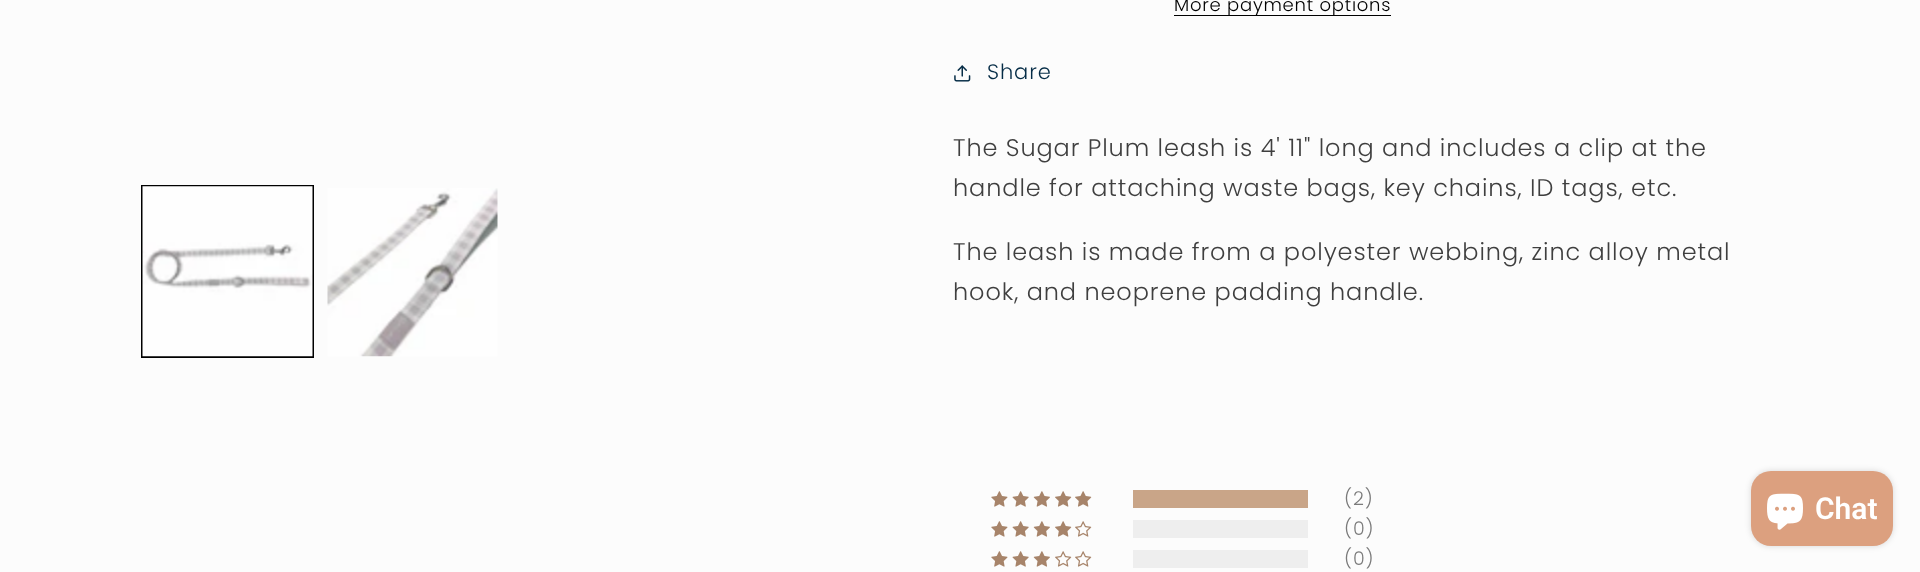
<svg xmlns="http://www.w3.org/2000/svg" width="1920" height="572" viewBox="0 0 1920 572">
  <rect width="100%" height="100%" fill="rgb(252,252,252)"/>
  <rect x="142" y="186" width="171" height="171" fill="none" stroke="rgb(0,0,0)" stroke-width="2"/>
  <image x="142" y="186" width="171" height="171" href="pic1.png"/>
  <image x="327" y="188" width="171" height="169" href="pic2.png"/>
  <rect x="1174" y="15" width="217" height="1" fill="rgb(0,0,0)"/>
  <text x="1174" y="11" font-family="Poppins" font-size="18" font-weight="300" letter-spacing="0.75" fill="rgb(0,0,0)">More payment options</text>
  <image x="954" y="65" width="17" height="17" href="pic3.png"/>
  <text x="987" y="79" font-family="Poppins" font-size="21" font-weight="300" letter-spacing="0.9" fill="rgb(5,44,70)">Share</text>
  <g font-family="Poppins" font-size="24" font-weight="300" letter-spacing="0.9" fill="rgb(63,63,63)">
    <text>
      <tspan x="953" y="156">The Sugar Plum leash is 4' 11" long and includes a clip at the</tspan>
      <tspan x="953" y="196">handle for attaching waste bags, key chains, ID tags, etc.</tspan>
    </text>
    <text>
      <tspan x="953" y="260">The leash is made from a polyester webbing, zinc alloy metal</tspan>
      <tspan x="953" y="300">hook, and neoprene padding handle.</tspan>
    </text>
  </g>
  <image x="991" y="491" width="17" height="16" href="pic4.png"/>
  <image x="1012" y="491" width="17" height="16" href="pic5.png"/>
  <image x="1033" y="491" width="17" height="16" href="pic6.png"/>
  <image x="1055" y="491" width="17" height="16" href="pic7.png"/>
  <image x="1075" y="491" width="17" height="16" href="pic7.png"/>
  <rect x="1133" y="490" width="175" height="18" fill="rgb(201,165,136)"/>
  <text x="1344" y="505" font-family="Poppins" font-size="19" font-weight="300" letter-spacing="0.9" fill="rgb(123,123,123)">(2)</text>
  <image x="991" y="521" width="17" height="16" href="pic4.png"/>
  <image x="1012" y="521" width="17" height="16" href="pic5.png"/>
  <image x="1033" y="521" width="17" height="16" href="pic6.png"/>
  <image x="1055" y="521" width="17" height="16" href="pic7.png"/>
  <image x="1075" y="521" width="17" height="16" href="pic8.png"/>
  <rect x="1133" y="520" width="175" height="18" fill="rgb(238,238,238)"/>
  <text x="1344" y="535" font-family="Poppins" font-size="19" font-weight="300" letter-spacing="0.9" fill="rgb(123,123,123)">(0)</text>
  <image x="991" y="551" width="17" height="16" href="pic4.png"/>
  <image x="1012" y="551" width="17" height="16" href="pic5.png"/>
  <image x="1033" y="551" width="17" height="16" href="pic6.png"/>
  <image x="1055" y="551" width="17" height="16" href="pic8.png"/>
  <image x="1075" y="551" width="17" height="16" href="pic8.png"/>
  <rect x="1133" y="550" width="175" height="18" fill="rgb(238,238,238)"/>
  <text x="1344" y="565" font-family="Poppins" font-size="19" font-weight="300" letter-spacing="0.9" fill="rgb(123,123,123)">(0)</text>
  <rect x="1751" y="471" width="142" height="75" rx="20" fill="rgba(0,0,0,0.15)" filter="blur(3px)"/>
  <rect x="1751" y="471" width="142" height="75" rx="20" fill="rgb(220,160,127)"/>
  <image x="1767" y="493" width="36" height="37" href="pic9.png"/>
  <text x="1815" y="519" font-family="Roboto" font-size="30" font-weight="600" fill="rgb(255,255,255)">Chat</text>
</svg>
